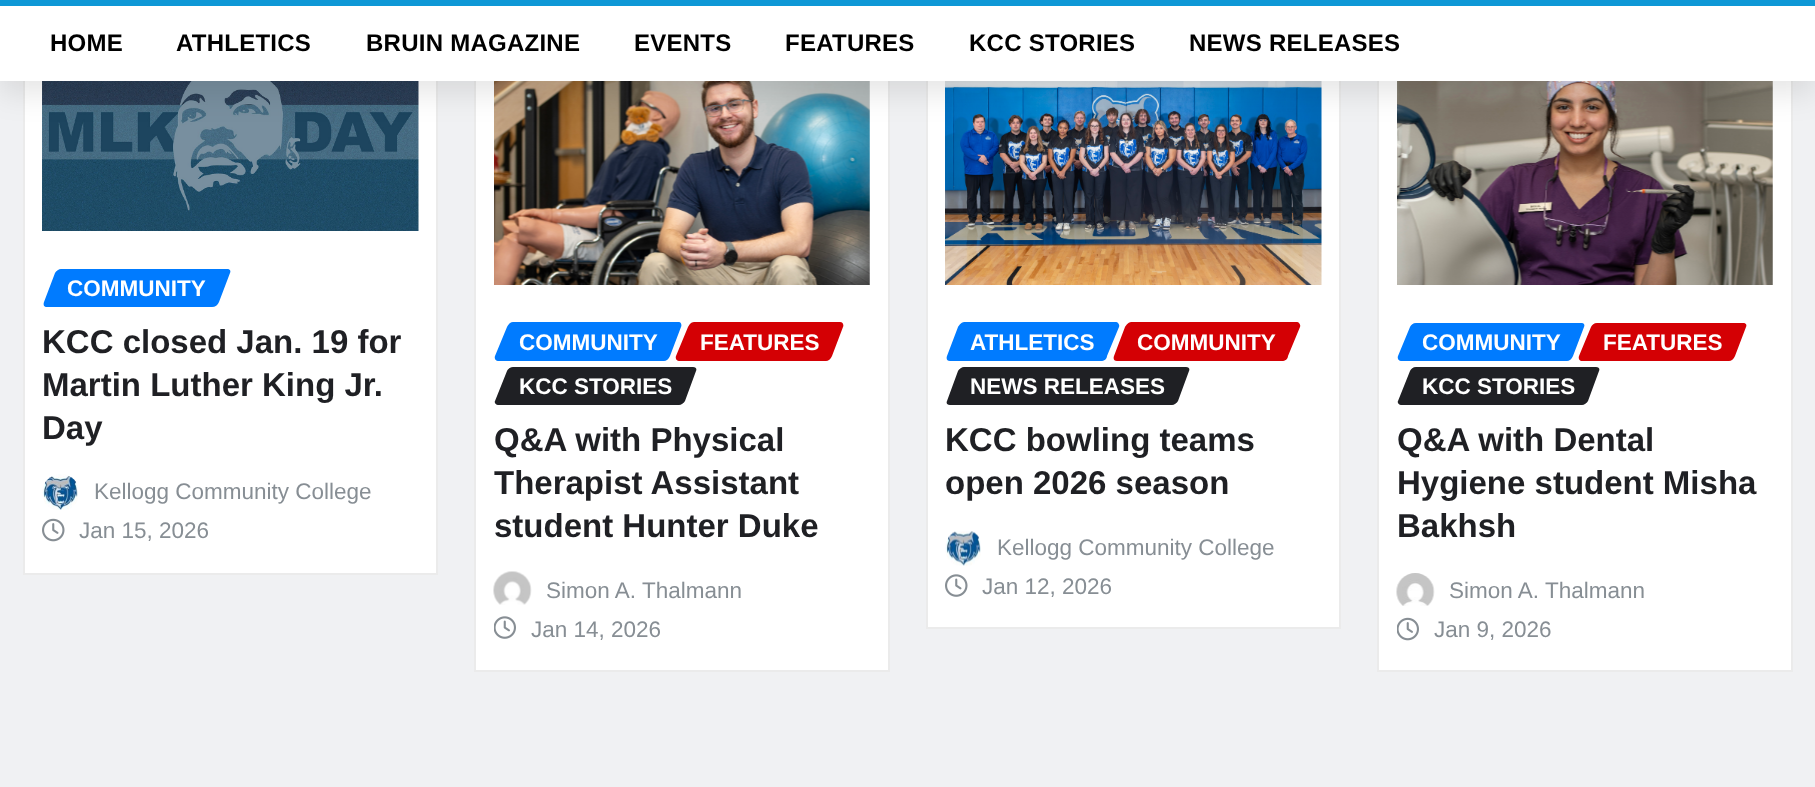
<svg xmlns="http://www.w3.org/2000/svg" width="1815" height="787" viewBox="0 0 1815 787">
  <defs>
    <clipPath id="clip1"><rect x="494" y="285" width="376" height="363"/></clipPath>
  </defs>
  <rect width="100%" height="100%" fill="rgb(240,241,243)"/>
  <rect x="25" y="81" width="411" height="492" fill="rgb(255,255,255)"/>
  <rect x="24" y="12" width="413" height="562" fill="none" stroke="rgb(235,235,235)" stroke-width="2"/>
  <image x="42" y="81" width="377" height="150" href="pic1.png"/>
  <rect x="476" y="81" width="412" height="589" fill="rgb(255,255,255)"/>
  <rect x="475" y="12" width="414" height="659" fill="none" stroke="rgb(235,235,235)" stroke-width="2"/>
  <image x="494" y="81" width="376" height="204" href="pic4.png"/>
  <rect x="928" y="81" width="411" height="546" fill="rgb(255,255,255)"/>
  <rect x="927" y="12" width="413" height="616" fill="none" stroke="rgb(235,235,235)" stroke-width="2"/>
  <image x="945" y="81" width="377" height="204" href="pic7.png"/>
  <rect x="1379" y="81" width="412" height="589" fill="rgb(255,255,255)"/>
  <rect x="1378" y="12" width="414" height="659" fill="none" stroke="rgb(235,235,235)" stroke-width="2"/>
  <image x="1397" y="81" width="376" height="204" href="pic10.png"/>
  <rect x="0" y="12" width="1815" height="81" fill="rgba(0,0,0,0.1)" filter="blur(15px)"/>
  <rect x="0" y="6" width="1815" height="75" fill="rgb(255,255,255)"/>
  <rect x="0" y="0" width="1815" height="6" fill="rgb(14,152,214)"/>
  <g font-family="Liberation Sans" font-size="24" font-weight="bold" letter-spacing="0.25" fill="rgb(0,0,0)">
    <text x="50" y="51">HOME</text>
    <text x="176" y="51">ATHLETICS</text>
    <text x="366" y="51">BRUIN MAGAZINE</text>
    <text x="634" y="51">EVENTS</text>
    <text x="785" y="51">FEATURES</text>
    <text x="969" y="51">KCC STORIES</text>
    <text x="1189" y="51">NEWS RELEASES</text>
  </g>
  <path d="M61 269H227C230 269 231 271 230 273L219 302C218 305 215 307 212 307H47C44 307 43 305 44 302L55 273C56 271 59 269 61 269Z" fill="rgb(0,123,255)"/>
  <text x="67" y="296" font-family="Liberation Sans" font-size="22.5" font-weight="bold" fill="rgb(255,255,255)">COMMUNITY</text>
  <g font-family="Liberation Sans" font-size="33" font-weight="bold" fill="rgb(31,32,36)">
    <text>
      <tspan x="42" y="353">KCC closed Jan. 19 for</tspan>
      <tspan x="42" y="396">Martin Luther King Jr.</tspan>
      <tspan x="42" y="439">Day</tspan>
    </text>
  </g>
  <image x="42" y="474" width="36" height="36" href="pic2.png"/>
  <text x="94" y="499" font-family="Liberation Sans" font-size="22.5" fill="rgb(135,142,148)">Kellogg Community College</text>
  <image x="42" y="518" width="23" height="24" href="pic3.png"/>
  <text x="79" y="538" font-family="Liberation Sans" font-size="22.5" fill="rgb(135,142,148)">Jan 15, 2026</text>
  <path d="M513 322H679C681 322 682 325 681 327L670 356C669 359 666 361 664 361H498C496 361 494 359 495 356L507 327C508 325 510 322 513 322Z" fill="rgb(0,123,255)"/>
  <text x="519" y="350" font-family="Liberation Sans" font-size="22.5" font-weight="bold" fill="rgb(255,255,255)">COMMUNITY</text>
  <path d="M694 322H840C843 322 844 325 843 327L832 356C831 359 828 361 826 361H679C677 361 675 359 676 356L688 327C689 325 691 322 694 322Z" fill="rgb(212,0,4)"/>
  <text x="700" y="350" font-family="Liberation Sans" font-size="22.5" font-weight="bold" fill="rgb(255,255,255)">FEATURES</text>
  <path d="M513 367H693C696 367 697 369 696 371L685 401C684 403 681 405 679 405H498C496 405 494 403 495 401L507 371C508 369 510 367 513 367Z" fill="rgb(31,32,36)"/>
  <text x="519" y="394" font-family="Liberation Sans" font-size="22.5" font-weight="bold" fill="rgb(255,255,255)">KCC STORIES</text>
  <text x="494" y="451" font-family="Liberation Sans" font-size="33" font-weight="bold" fill="rgb(31,32,36)">Q&amp;A with Physical</text>
  <g clip-path="url(#clip1)">
    <text x="494" y="494" font-family="Liberation Sans" font-size="33" font-weight="bold" fill="rgb(31,32,36)">Therapist Assistant</text>
  </g>
  <text x="494" y="537" font-family="Liberation Sans" font-size="33" font-weight="bold" fill="rgb(31,32,36)">student Hunter Duke</text>
  <image x="493" y="571" width="39" height="34" href="pic5.png"/>
  <text x="546" y="598" font-family="Liberation Sans" font-size="22.5" fill="rgb(135,142,148)">Simon A. Thalmann</text>
  <image x="494" y="616" width="22" height="23" href="pic6.png"/>
  <text x="531" y="637" font-family="Liberation Sans" font-size="22.5" fill="rgb(135,142,148)">Jan 14, 2026</text>
  <path d="M964 322H1116C1118 322 1120 325 1119 327L1107 356C1107 359 1104 361 1101 361H950C947 361 946 359 947 356L958 327C959 325 962 322 964 322Z" fill="rgb(0,123,255)"/>
  <text x="970" y="350" font-family="Liberation Sans" font-size="22.5" font-weight="bold" fill="rgb(255,255,255)">ATHLETICS</text>
  <path d="M1131 322H1297C1299 322 1301 325 1300 327L1288 356C1288 359 1285 361 1282 361H1117C1114 361 1113 359 1114 356L1125 327C1126 325 1129 322 1131 322Z" fill="rgb(212,0,4)"/>
  <text x="1137" y="350" font-family="Liberation Sans" font-size="22.5" font-weight="bold" fill="rgb(255,255,255)">COMMUNITY</text>
  <path d="M964 367H1186C1189 367 1190 369 1189 371L1178 401C1177 403 1174 405 1172 405H950C947 405 946 403 947 401L958 371C959 369 962 367 964 367Z" fill="rgb(31,32,36)"/>
  <text x="970" y="394" font-family="Liberation Sans" font-size="22.5" font-weight="bold" fill="rgb(255,255,255)">NEWS RELEASES</text>
  <g font-family="Liberation Sans" font-size="33" font-weight="bold" fill="rgb(31,32,36)">
    <text>
      <tspan x="945" y="451">KCC bowling teams</tspan>
      <tspan x="945" y="494">open 2026 season</tspan>
    </text>
  </g>
  <image x="945" y="531" width="36" height="35" href="pic8.png"/>
  <text x="997" y="555" font-family="Liberation Sans" font-size="22.5" fill="rgb(135,142,148)">Kellogg Community College</text>
  <image x="945" y="574" width="23" height="23" href="pic9.png"/>
  <text x="982" y="594" font-family="Liberation Sans" font-size="22.5" fill="rgb(135,142,148)">Jan 12, 2026</text>
  <path d="M1416 323H1582C1584 323 1585 325 1584 327L1573 356C1572 359 1569 361 1567 361H1401C1399 361 1397 359 1398 356L1410 327C1411 325 1413 323 1416 323Z" fill="rgb(0,123,255)"/>
  <text x="1422" y="350" font-family="Liberation Sans" font-size="22.5" font-weight="bold" fill="rgb(255,255,255)">COMMUNITY</text>
  <path d="M1597 323H1743C1746 323 1747 325 1746 327L1735 356C1734 359 1731 361 1729 361H1582C1580 361 1578 359 1579 356L1591 327C1592 325 1594 323 1597 323Z" fill="rgb(212,0,4)"/>
  <text x="1603" y="350" font-family="Liberation Sans" font-size="22.5" font-weight="bold" fill="rgb(255,255,255)">FEATURES</text>
  <path d="M1416 367H1596C1599 367 1600 369 1599 371L1588 401C1587 403 1584 405 1582 405H1401C1399 405 1397 403 1398 401L1410 371C1411 369 1413 367 1416 367Z" fill="rgb(31,32,36)"/>
  <text x="1422" y="394" font-family="Liberation Sans" font-size="22.5" font-weight="bold" fill="rgb(255,255,255)">KCC STORIES</text>
  <g font-family="Liberation Sans" font-size="33" font-weight="bold" fill="rgb(31,32,36)">
    <text>
      <tspan x="1397" y="451">Q&amp;A with Dental</tspan>
      <tspan x="1397" y="494">Hygiene student Misha</tspan>
      <tspan x="1397" y="537">Bakhsh</tspan>
    </text>
  </g>
  <image x="1396" y="573" width="39" height="33" href="pic11.png"/>
  <text x="1449" y="598" font-family="Liberation Sans" font-size="22.5" fill="rgb(135,142,148)">Simon A. Thalmann</text>
  <image x="1397" y="617" width="22" height="24" href="pic12.png"/>
  <text x="1434" y="637" font-family="Liberation Sans" font-size="22.5" fill="rgb(135,142,148)">Jan 9, 2026</text>
</svg>
